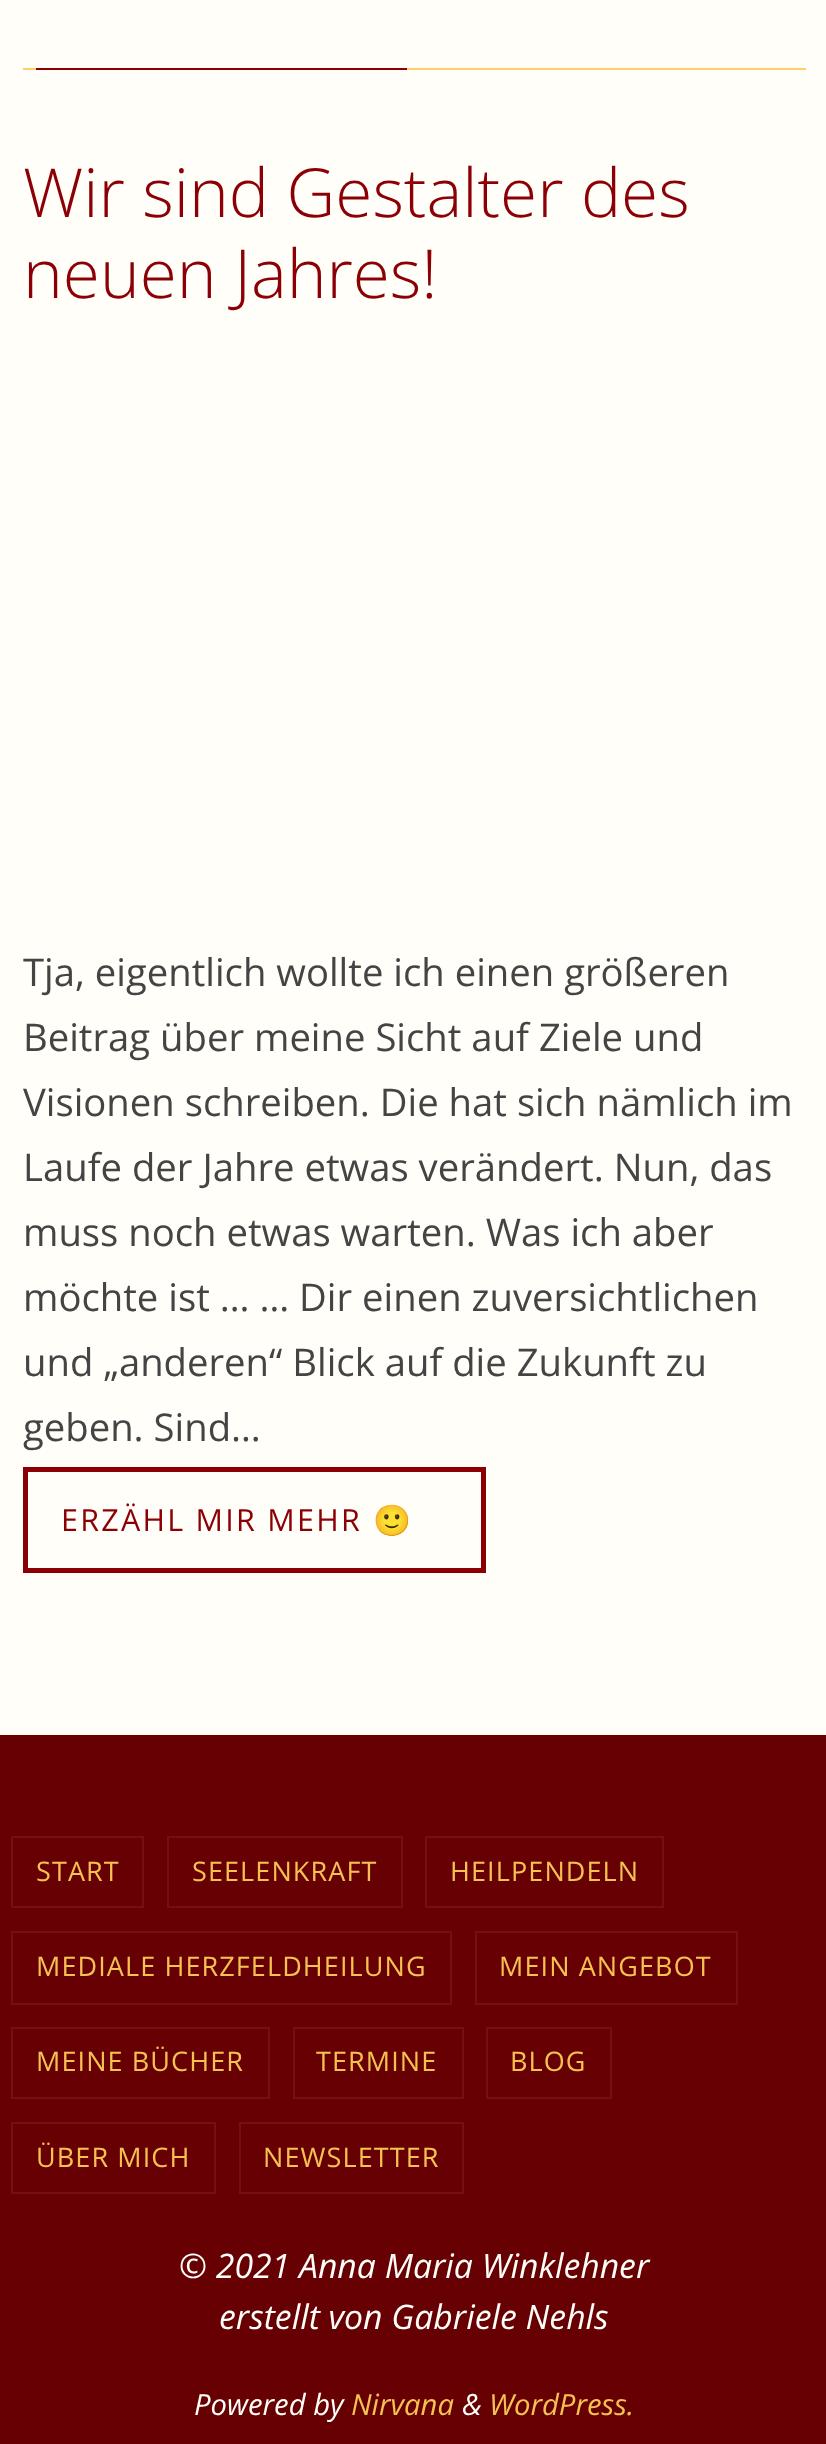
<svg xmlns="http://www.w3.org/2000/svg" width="826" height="2444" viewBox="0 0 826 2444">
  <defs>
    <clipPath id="clip1"><rect x="23" y="151" width="783" height="1449"/></clipPath>
  </defs>
  <rect width="100%" height="100%" fill="rgb(255,254,249)"/>
  <rect x="23" y="68" width="783" height="2" fill="rgb(253,208,107)"/>
  <rect x="36" y="68" width="371" height="2" fill="rgb(140,0,5)"/>
  <g font-family="Open Sans" font-size="67.5" font-weight="300" fill="rgb(140,0,5)">
    <text>
      <tspan x="23" y="217">Wir sind Gestalter des</tspan>
      <tspan x="23" y="298">neuen Jahres!</tspan>
    </text>
  </g>
  <g clip-path="url(#clip1)">
    <text x="23" y="986" font-family="Open Sans" font-size="38.25" fill="rgb(68,68,68)">Tja, eigentlich wollte ich einen größeren</text>
  </g>
  <g font-family="Open Sans" font-size="38.25" fill="rgb(68,68,68)">
    <text>
      <tspan x="23" y="1051">Beitrag über meine Sicht auf Ziele und</tspan>
      <tspan x="23" y="1116">Visionen schreiben. Die hat sich nämlich im</tspan>
      <tspan x="23" y="1181">Laufe der Jahre etwas verändert. Nun, das</tspan>
      <tspan x="23" y="1246">muss noch etwas warten. Was ich aber</tspan>
      <tspan x="23" y="1311">möchte ist … … Dir einen zuversichtlichen</tspan>
      <tspan x="23" y="1376">und „anderen“ Blick auf die Zukunft zu</tspan>
      <tspan x="23" y="1441">geben. Sind…</tspan>
    </text>
  </g>
  <rect x="25.5" y="1469.5" width="458" height="101" fill="none" stroke="rgb(140,0,5)" stroke-width="5"/>
  <text x="61" y="1531" font-family="Open Sans" font-size="30.5" letter-spacing="2.25" fill="rgb(140,0,5)">ERZÄHL MIR MEHR</text>
  <text x="373" y="1531" font-family="Noto Color Emoji" font-size="30.5" letter-spacing="2.25" fill="rgb(140,0,5)">🙂</text>
  <rect x="0" y="1735" width="826" height="709" fill="rgb(102,0,3)"/>
  <rect x="12" y="1837" width="131" height="70" fill="none" stroke="rgb(117,15,18)" stroke-width="2"/>
  <text x="36" y="1881" font-family="Open Sans" font-size="27" letter-spacing="1.1" fill="rgb(245,194,81)">START</text>
  <rect x="168" y="1837" width="234" height="70" fill="none" stroke="rgb(117,15,18)" stroke-width="2"/>
  <text x="192" y="1881" font-family="Open Sans" font-size="27" letter-spacing="1.1" fill="rgb(245,194,81)">SEELENKRAFT</text>
  <rect x="426" y="1837" width="237" height="70" fill="none" stroke="rgb(117,15,18)" stroke-width="2"/>
  <text x="450" y="1881" font-family="Open Sans" font-size="27" letter-spacing="1.1" fill="rgb(245,194,81)">HEILPENDELN</text>
  <rect x="12" y="1932" width="439" height="72" fill="none" stroke="rgb(117,15,18)" stroke-width="2"/>
  <text x="36" y="1976" font-family="Open Sans" font-size="27" letter-spacing="1.1" fill="rgb(245,194,81)">MEDIALE HERZFELDHEILUNG</text>
  <rect x="476" y="1932" width="261" height="72" fill="none" stroke="rgb(117,15,18)" stroke-width="2"/>
  <text x="499" y="1976" font-family="Open Sans" font-size="27" letter-spacing="1.1" fill="rgb(245,194,81)">MEIN ANGEBOT</text>
  <rect x="12" y="2028" width="257" height="70" fill="none" stroke="rgb(117,15,18)" stroke-width="2"/>
  <text x="36" y="2071" font-family="Open Sans" font-size="27" letter-spacing="1.1" fill="rgb(245,194,81)">MEINE BÜCHER</text>
  <rect x="294" y="2028" width="169" height="70" fill="none" stroke="rgb(117,15,18)" stroke-width="2"/>
  <text x="316" y="2071" font-family="Open Sans" font-size="27" letter-spacing="1.1" fill="rgb(245,194,81)">TERMINE</text>
  <rect x="487" y="2028" width="124" height="70" fill="none" stroke="rgb(117,15,18)" stroke-width="2"/>
  <text x="510" y="2071" font-family="Open Sans" font-size="27" letter-spacing="1.1" fill="rgb(245,194,81)">BLOG</text>
  <rect x="12" y="2123" width="203" height="70" fill="none" stroke="rgb(117,15,18)" stroke-width="2"/>
  <text x="36" y="2167" font-family="Open Sans" font-size="27" letter-spacing="1.1" fill="rgb(245,194,81)">ÜBER MICH</text>
  <rect x="240" y="2123" width="223" height="70" fill="none" stroke="rgb(117,15,18)" stroke-width="2"/>
  <text x="263" y="2167" font-family="Open Sans" font-size="27" letter-spacing="1.1" fill="rgb(245,194,81)">NEWSLETTER</text>
  <g font-family="Open Sans" font-size="33.75" font-style="italic" fill="rgb(255,254,249)">
    <text x="179" y="2278">© 2021 Anna Maria Winklehner</text>
    <text x="219" y="2329">erstellt von Gabriele Nehls</text>
  </g>
  <text x="194" y="2415" font-family="Open Sans" font-size="29.25" font-style="italic" fill="rgb(255,254,249)">Powered by</text>
  <text x="351" y="2415" font-family="Open Sans" font-size="29.25" font-style="italic" fill="rgb(245,194,81)">Nirvana</text>
  <text x="462" y="2415" font-family="Open Sans" font-size="29.25" font-style="italic" fill="rgb(255,254,249)">&amp;</text>
  <text x="489" y="2415" font-family="Open Sans" font-size="29.25" font-style="italic" fill="rgb(245,194,81)">WordPress.</text>
</svg>
